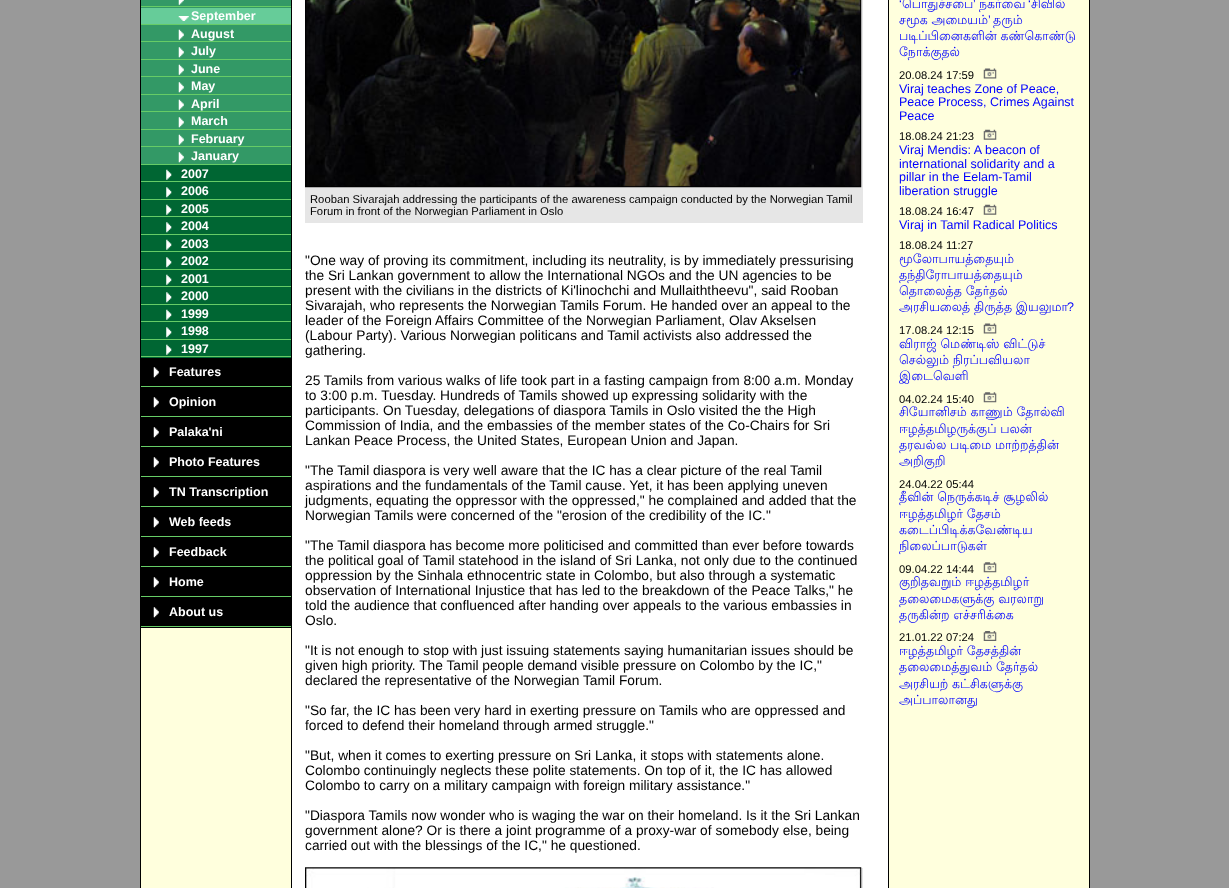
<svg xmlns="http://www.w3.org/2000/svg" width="1229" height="888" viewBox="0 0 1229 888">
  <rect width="100%" height="100%" fill="rgb(153,153,153)"/>
  <rect x="141" y="0" width="948" height="888" fill="rgb(255,255,221)"/>
  <rect x="1089" y="0" width="1" height="888" fill="rgb(0,0,0)"/>
  <rect x="140" y="0" width="1" height="888" fill="rgb(0,0,0)"/>
  <rect x="141" y="0" width="150" height="8" fill="rgb(51,153,102)"/>
  <image x="178" y="0" width="6" height="5" href="pic1.png"/>
  <rect x="141" y="6" width="150" height="1" fill="rgb(102,204,102)"/>
  <rect x="141" y="8" width="150" height="16" fill="rgb(102,204,153)"/>
  <image x="178" y="16" width="11" height="5" href="pic2.png"/>
  <rect x="141" y="24" width="150" height="1" fill="rgb(102,204,102)"/>
  <text x="191" y="20" font-family="Liberation Sans" font-size="12.5" font-weight="bold" fill="rgb(255,255,255)">September</text>
  <rect x="141" y="25" width="150" height="34" fill="rgb(51,153,102)"/>
  <image x="178" y="29" width="6" height="11" href="pic3.png"/>
  <rect x="141" y="41" width="150" height="1" fill="rgb(102,204,102)"/>
  <text x="191" y="38" font-family="Liberation Sans" font-size="12.5" font-weight="bold" fill="rgb(255,255,255)">August</text>
  <image x="178" y="47" width="6" height="11" href="pic4.png"/>
  <rect x="141" y="59" width="150" height="1" fill="rgb(102,204,102)"/>
  <text x="191" y="55" font-family="Liberation Sans" font-size="12.5" font-weight="bold" fill="rgb(255,255,255)">July</text>
  <rect x="141" y="60" width="150" height="34" fill="rgb(51,153,102)"/>
  <image x="178" y="64" width="6" height="11" href="pic3.png"/>
  <rect x="141" y="76" width="150" height="1" fill="rgb(102,204,102)"/>
  <text x="191" y="73" font-family="Liberation Sans" font-size="12.5" font-weight="bold" fill="rgb(255,255,255)">June</text>
  <image x="178" y="82" width="6" height="11" href="pic5.png"/>
  <rect x="141" y="94" width="150" height="1" fill="rgb(102,204,102)"/>
  <text x="191" y="90" font-family="Liberation Sans" font-size="12.5" font-weight="bold" fill="rgb(255,255,255)">May</text>
  <rect x="141" y="95" width="150" height="34" fill="rgb(51,153,102)"/>
  <image x="178" y="99" width="6" height="11" href="pic3.png"/>
  <rect x="141" y="111" width="150" height="1" fill="rgb(102,204,102)"/>
  <text x="191" y="108" font-family="Liberation Sans" font-size="12.5" font-weight="bold" fill="rgb(255,255,255)">April</text>
  <image x="178" y="117" width="6" height="11" href="pic4.png"/>
  <rect x="141" y="129" width="150" height="1" fill="rgb(102,204,102)"/>
  <text x="191" y="125" font-family="Liberation Sans" font-size="12.5" font-weight="bold" fill="rgb(255,255,255)">March</text>
  <rect x="141" y="130" width="150" height="34" fill="rgb(51,153,102)"/>
  <image x="178" y="134" width="6" height="11" href="pic3.png"/>
  <rect x="141" y="146" width="150" height="1" fill="rgb(102,204,102)"/>
  <text x="191" y="143" font-family="Liberation Sans" font-size="12.5" font-weight="bold" fill="rgb(255,255,255)">February</text>
  <image x="178" y="152" width="6" height="11" href="pic4.png"/>
  <rect x="141" y="164" width="150" height="1" fill="rgb(102,204,102)"/>
  <text x="191" y="160" font-family="Liberation Sans" font-size="12.5" font-weight="bold" fill="rgb(255,255,255)">January</text>
  <rect x="141" y="165" width="150" height="34" fill="rgb(0,102,51)"/>
  <image x="166" y="169" width="6" height="11" href="pic6.png"/>
  <rect x="141" y="181" width="150" height="1" fill="rgb(102,204,102)"/>
  <text x="181" y="178" font-family="Liberation Sans" font-size="12.5" font-weight="bold" fill="rgb(255,255,255)">2007</text>
  <image x="166" y="187" width="6" height="11" href="pic7.png"/>
  <rect x="141" y="199" width="150" height="1" fill="rgb(102,204,102)"/>
  <text x="181" y="195" font-family="Liberation Sans" font-size="12.5" font-weight="bold" fill="rgb(255,255,255)">2006</text>
  <rect x="141" y="200" width="150" height="34" fill="rgb(0,102,51)"/>
  <image x="166" y="204" width="6" height="11" href="pic6.png"/>
  <rect x="141" y="216" width="150" height="1" fill="rgb(102,204,102)"/>
  <text x="181" y="213" font-family="Liberation Sans" font-size="12.5" font-weight="bold" fill="rgb(255,255,255)">2005</text>
  <image x="166" y="222" width="6" height="11" href="pic7.png"/>
  <rect x="141" y="234" width="150" height="1" fill="rgb(102,204,102)"/>
  <text x="181" y="230" font-family="Liberation Sans" font-size="12.5" font-weight="bold" fill="rgb(255,255,255)">2004</text>
  <rect x="141" y="235" width="150" height="34" fill="rgb(0,102,51)"/>
  <image x="166" y="239" width="6" height="11" href="pic6.png"/>
  <rect x="141" y="251" width="150" height="1" fill="rgb(102,204,102)"/>
  <text x="181" y="248" font-family="Liberation Sans" font-size="12.5" font-weight="bold" fill="rgb(255,255,255)">2003</text>
  <image x="166" y="257" width="6" height="11" href="pic7.png"/>
  <rect x="141" y="269" width="150" height="1" fill="rgb(102,204,102)"/>
  <text x="181" y="265" font-family="Liberation Sans" font-size="12.5" font-weight="bold" fill="rgb(255,255,255)">2002</text>
  <rect x="141" y="270" width="150" height="34" fill="rgb(0,102,51)"/>
  <image x="166" y="274" width="6" height="11" href="pic8.png"/>
  <rect x="141" y="286" width="150" height="1" fill="rgb(102,204,102)"/>
  <text x="181" y="283" font-family="Liberation Sans" font-size="12.5" font-weight="bold" fill="rgb(255,255,255)">2001</text>
  <image x="166" y="292" width="6" height="11" href="pic7.png"/>
  <rect x="141" y="304" width="150" height="1" fill="rgb(102,204,102)"/>
  <text x="181" y="300" font-family="Liberation Sans" font-size="12.5" font-weight="bold" fill="rgb(255,255,255)">2000</text>
  <rect x="141" y="305" width="150" height="34" fill="rgb(0,102,51)"/>
  <image x="166" y="309" width="6" height="11" href="pic6.png"/>
  <rect x="141" y="321" width="150" height="1" fill="rgb(102,204,102)"/>
  <text x="181" y="318" font-family="Liberation Sans" font-size="12.5" font-weight="bold" fill="rgb(255,255,255)">1999</text>
  <image x="166" y="327" width="6" height="11" href="pic7.png"/>
  <rect x="141" y="339" width="150" height="1" fill="rgb(102,204,102)"/>
  <text x="181" y="335" font-family="Liberation Sans" font-size="12.5" font-weight="bold" fill="rgb(255,255,255)">1998</text>
  <rect x="141" y="340" width="150" height="18" fill="rgb(0,102,51)"/>
  <image x="166" y="344" width="6" height="11" href="pic6.png"/>
  <rect x="141" y="356" width="150" height="1" fill="rgb(102,204,102)"/>
  <text x="181" y="353" font-family="Liberation Sans" font-size="12.5" font-weight="bold" fill="rgb(255,255,255)">1997</text>
  <rect x="141" y="358" width="150" height="270" fill="rgb(0,0,0)"/>
  <image x="153" y="367" width="6" height="11" href="pic9.png"/>
  <rect x="141" y="386" width="150" height="1" fill="rgb(102,204,102)"/>
  <text x="169" y="376" font-family="Liberation Sans" font-size="12.5" font-weight="bold" fill="rgb(255,255,255)">Features</text>
  <image x="153" y="397" width="6" height="11" href="pic9.png"/>
  <rect x="141" y="416" width="150" height="1" fill="rgb(102,204,102)"/>
  <text x="169" y="406" font-family="Liberation Sans" font-size="12.5" font-weight="bold" fill="rgb(255,255,255)">Opinion</text>
  <image x="153" y="427" width="6" height="11" href="pic9.png"/>
  <rect x="141" y="446" width="150" height="1" fill="rgb(102,204,102)"/>
  <text x="169" y="436" font-family="Liberation Sans" font-size="12.5" font-weight="bold" fill="rgb(255,255,255)">Palaka'ni</text>
  <image x="153" y="457" width="6" height="11" href="pic9.png"/>
  <rect x="141" y="476" width="150" height="1" fill="rgb(102,204,102)"/>
  <text x="169" y="466" font-family="Liberation Sans" font-size="12.5" font-weight="bold" fill="rgb(255,255,255)">Photo Features</text>
  <image x="153" y="487" width="6" height="11" href="pic9.png"/>
  <rect x="141" y="506" width="150" height="1" fill="rgb(102,204,102)"/>
  <text x="169" y="496" font-family="Liberation Sans" font-size="12.5" font-weight="bold" fill="rgb(255,255,255)">TN Transcription</text>
  <image x="153" y="517" width="6" height="11" href="pic10.png"/>
  <rect x="141" y="536" width="150" height="1" fill="rgb(102,204,102)"/>
  <text x="169" y="526" font-family="Liberation Sans" font-size="12.5" font-weight="bold" fill="rgb(255,255,255)">Web feeds</text>
  <image x="153" y="547" width="6" height="11" href="pic9.png"/>
  <rect x="141" y="566" width="150" height="1" fill="rgb(102,204,102)"/>
  <text x="169" y="556" font-family="Liberation Sans" font-size="12.5" font-weight="bold" fill="rgb(255,255,255)">Feedback</text>
  <image x="153" y="577" width="6" height="11" href="pic9.png"/>
  <rect x="141" y="596" width="150" height="1" fill="rgb(102,204,102)"/>
  <text x="169" y="586" font-family="Liberation Sans" font-size="12.5" font-weight="bold" fill="rgb(255,255,255)">Home</text>
  <image x="153" y="607" width="6" height="11" href="pic9.png"/>
  <rect x="141" y="626" width="150" height="1" fill="rgb(102,204,102)"/>
  <text x="169" y="616" font-family="Liberation Sans" font-size="12.5" font-weight="bold" fill="rgb(255,255,255)">About us</text>
  <rect x="292" y="0" width="596" height="888" fill="rgb(255,255,255)"/>
  <rect x="888" y="0" width="1" height="888" fill="rgb(0,0,0)"/>
  <rect x="291" y="0" width="1" height="888" fill="rgb(0,0,0)"/>
  <rect x="305" y="0" width="558" height="223" fill="rgb(230,230,230)"/>
  <image x="305" y="0" width="557" height="188" href="pic11.png"/>
  <g font-family="Liberation Sans" font-size="11.25" fill="rgb(0,0,0)">
    <text>
      <tspan x="310" y="203">Rooban Sivarajah addressing the participants of the awareness campaign conducted by the Norwegian Tamil</tspan>
      <tspan x="310" y="215">Forum in front of the Norwegian Parliament in Oslo</tspan>
    </text>
  </g>
  <g font-family="Liberation Sans" font-size="13.75" fill="rgb(0,0,0)">
    <text>
      <tspan x="305" y="265">"One way of proving its commitment, including its neutrality, is by immediately pressurising</tspan>
      <tspan x="305" y="280">the Sri Lankan government to allow the International NGOs and the UN agencies to be</tspan>
      <tspan x="305" y="295">present with the civilians in the districts of Ki'linochchi and Mullaiththeevu", said Rooban</tspan>
      <tspan x="305" y="310">Sivarajah, who represents the Norwegian Tamils Forum. He handed over an appeal to the</tspan>
      <tspan x="305" y="325">leader of the Foreign Affairs Committee of the Norwegian Parliament, Olav Akselsen</tspan>
      <tspan x="305" y="340">(Labour Party). Various Norwegian politicans and Tamil activists also addressed the</tspan>
      <tspan x="305" y="355">gathering.</tspan>
    </text>
    <text>
      <tspan x="305" y="385">25 Tamils from various walks of life took part in a fasting campaign from 8:00 a.m. Monday</tspan>
      <tspan x="305" y="400">to 3:00 p.m. Tuesday. Hundreds of Tamils showed up expressing solidarity with the</tspan>
      <tspan x="305" y="415">participants. On Tuesday, delegations of diaspora Tamils in Oslo visited the the High</tspan>
      <tspan x="305" y="430">Commission of India, and the embassies of the member states of the Co-Chairs for Sri</tspan>
      <tspan x="305" y="445">Lankan Peace Process, the United States, European Union and Japan.</tspan>
    </text>
    <text>
      <tspan x="305" y="475">"The Tamil diaspora is very well aware that the IC has a clear picture of the real Tamil</tspan>
      <tspan x="305" y="490">aspirations and the fundamentals of the Tamil cause. Yet, it has been applying uneven</tspan>
      <tspan x="305" y="505">judgments, equating the oppressor with the oppressed," he complained and added that the</tspan>
      <tspan x="305" y="520">Norwegian Tamils were concerned of the "erosion of the credibility of the IC."</tspan>
    </text>
    <text>
      <tspan x="305" y="550">"The Tamil diaspora has become more politicised and committed than ever before towards</tspan>
      <tspan x="305" y="565">the political goal of Tamil statehood in the island of Sri Lanka, not only due to the continued</tspan>
      <tspan x="305" y="580">oppression by the Sinhala ethnocentric state in Colombo, but also through a systematic</tspan>
      <tspan x="305" y="595">observation of International Injustice that has led to the breakdown of the Peace Talks," he</tspan>
      <tspan x="305" y="610">told the audience that confluenced after handing over appeals to the various embassies in</tspan>
      <tspan x="305" y="625">Oslo.</tspan>
    </text>
    <text>
      <tspan x="305" y="655">"It is not enough to stop with just issuing statements saying humanitarian issues should be</tspan>
      <tspan x="305" y="670">given high priority. The Tamil people demand visible pressure on Colombo by the IC,"</tspan>
      <tspan x="305" y="685">declared the representative of the Norwegian Tamil Forum.</tspan>
    </text>
    <text>
      <tspan x="305" y="715">"So far, the IC has been very hard in exerting pressure on Tamils who are oppressed and</tspan>
      <tspan x="305" y="730">forced to defend their homeland through armed struggle."</tspan>
    </text>
    <text>
      <tspan x="305" y="760">"But, when it comes to exerting pressure on Sri Lanka, it stops with statements alone.</tspan>
      <tspan x="305" y="775">Colombo continuingly neglects these polite statements. On top of it, the IC has allowed</tspan>
      <tspan x="305" y="790">Colombo to carry on a military campaign with foreign military assistance."</tspan>
    </text>
    <text>
      <tspan x="305" y="820">"Diaspora Tamils now wonder who is waging the war on their homeland. Is it the Sri Lankan</tspan>
      <tspan x="305" y="835">government alone? Or is there a joint programme of a proxy-war of somebody else, being</tspan>
      <tspan x="305" y="850">carried out with the blessings of the IC," he questioned.</tspan>
    </text>
  </g>
  <rect x="861" y="868" width="2" height="20" fill="rgb(230,230,230)"/>
  <image x="305" y="867" width="557" height="21" href="pic12.png"/>
  <text x="899" y="8" font-family="Liberation Sans" font-size="12.5" fill="rgb(0,0,255)">‘</text>
  <text x="902" y="8" font-family="Lohit Tamil" font-size="12.5" fill="rgb(0,0,255)">பொதுச்சபை</text>
  <text x="973" y="8" font-family="Liberation Sans" font-size="12.5" fill="rgb(0,0,255)">’</text>
  <text x="979" y="8" font-family="Lohit Tamil" font-size="12.5" fill="rgb(0,0,255)">நகர்வை</text>
  <text x="1028" y="8" font-family="Liberation Sans" font-size="12.5" fill="rgb(0,0,255)">‘</text>
  <g font-family="Lohit Tamil" font-size="12.5" fill="rgb(0,0,255)">
    <text x="1031" y="8">சிவில்</text>
    <text x="899" y="24">சமூக அமையம்</text>
  </g>
  <text x="988" y="24" font-family="Liberation Sans" font-size="12.5" fill="rgb(0,0,255)">’</text>
  <g font-family="Lohit Tamil" font-size="12.5" fill="rgb(0,0,255)">
    <text x="993" y="24">தரும்</text>
    <text>
      <tspan x="899" y="40">படிப்பினைகளின் கண்கொண்டு</tspan>
      <tspan x="899" y="56">நோக்குதல்</tspan>
    </text>
  </g>
  <text x="899" y="79" font-family="Liberation Sans" font-size="11.25" fill="rgb(0,0,0)">20.08.24 17:59</text>
  <image x="983" y="68" width="14" height="11" href="pic13.png"/>
  <g font-family="Liberation Sans" font-size="12.5" fill="rgb(0,0,255)">
    <text>
      <tspan x="899" y="93">Viraj teaches Zone of Peace,</tspan>
      <tspan x="899" y="106">Peace Process, Crimes Against</tspan>
      <tspan x="899" y="120">Peace</tspan>
    </text>
  </g>
  <text x="899" y="140" font-family="Liberation Sans" font-size="11.25" fill="rgb(0,0,0)">18.08.24 21:23</text>
  <image x="983" y="129" width="14" height="11" href="pic14.png"/>
  <g font-family="Liberation Sans" font-size="12.5" fill="rgb(0,0,255)">
    <text>
      <tspan x="899" y="154">Viraj Mendis: A beacon of</tspan>
      <tspan x="899" y="168">international solidarity and a</tspan>
      <tspan x="899" y="181">pillar in the Eelam-Tamil</tspan>
      <tspan x="899" y="195">liberation struggle</tspan>
    </text>
  </g>
  <text x="899" y="215" font-family="Liberation Sans" font-size="11.25" fill="rgb(0,0,0)">18.08.24 16:47</text>
  <image x="983" y="204" width="14" height="11" href="pic14.png"/>
  <text x="899" y="229" font-family="Liberation Sans" font-size="12.5" fill="rgb(0,0,255)">Viraj in Tamil Radical Politics</text>
  <text x="899" y="249" font-family="Liberation Sans" font-size="11.25" fill="rgb(0,0,0)">18.08.24 11:27</text>
  <g font-family="Lohit Tamil" font-size="12.5" fill="rgb(0,0,255)">
    <text>
      <tspan x="899" y="263">மூலோபாயத்தையும்</tspan>
      <tspan x="899" y="279">தந்திரோபாயத்தையும்</tspan>
      <tspan x="899" y="295">தொலைத்த தேர்தல்</tspan>
      <tspan x="899" y="311">அரசியலைத் திருத்த இயலுமா</tspan>
    </text>
  </g>
  <text x="1067" y="311" font-family="Liberation Sans" font-size="12.5" fill="rgb(0,0,255)">?</text>
  <text x="899" y="334" font-family="Liberation Sans" font-size="11.25" fill="rgb(0,0,0)">17.08.24 12:15</text>
  <image x="983" y="323" width="14" height="11" href="pic13.png"/>
  <g font-family="Lohit Tamil" font-size="12.5" fill="rgb(0,0,255)">
    <text>
      <tspan x="899" y="348">விராஜ் மெண்டிஸ் விட்டுச்</tspan>
      <tspan x="899" y="364">செல்லும் நிரப்பவியலா</tspan>
      <tspan x="899" y="380">இடைவெளி</tspan>
    </text>
  </g>
  <text x="899" y="403" font-family="Liberation Sans" font-size="11.25" fill="rgb(0,0,0)">04.02.24 15:40</text>
  <image x="983" y="392" width="14" height="11" href="pic15.png"/>
  <g font-family="Lohit Tamil" font-size="12.5" fill="rgb(0,0,255)">
    <text>
      <tspan x="899" y="416">சியோனிசம் காணும் தோல்வி</tspan>
      <tspan x="899" y="433">ஈழத்தமிழருக்குப் பலன்</tspan>
      <tspan x="899" y="449">தரவல்ல படிமை மாற்றத்தின்</tspan>
      <tspan x="899" y="465">அறிகுறி</tspan>
    </text>
  </g>
  <text x="899" y="488" font-family="Liberation Sans" font-size="11.25" fill="rgb(0,0,0)">24.04.22 05:44</text>
  <g font-family="Lohit Tamil" font-size="12.5" fill="rgb(0,0,255)">
    <text>
      <tspan x="899" y="501">தீவின் நெருக்கடிச் சூழலில்</tspan>
      <tspan x="899" y="518">ஈழத்தமிழர் தேசம்</tspan>
      <tspan x="899" y="534">கடைப்பிடிக்கவேண்டிய</tspan>
      <tspan x="899" y="550">நிலைப்பாடுகள்</tspan>
    </text>
  </g>
  <text x="899" y="573" font-family="Liberation Sans" font-size="11.25" fill="rgb(0,0,0)">09.04.22 14:44</text>
  <image x="983" y="562" width="14" height="11" href="pic15.png"/>
  <g font-family="Lohit Tamil" font-size="12.5" fill="rgb(0,0,255)">
    <text>
      <tspan x="899" y="586">குறிதவறும் ஈழத்தமிழர்</tspan>
      <tspan x="899" y="603">தலைமைகளுக்கு வரலாறு</tspan>
      <tspan x="899" y="619">தருகின்ற எச்சரிக்கை</tspan>
    </text>
  </g>
  <text x="899" y="641" font-family="Liberation Sans" font-size="11.25" fill="rgb(0,0,0)">21.01.22 07:24</text>
  <image x="983" y="631" width="14" height="10" href="pic16.png"/>
  <g font-family="Lohit Tamil" font-size="12.5" fill="rgb(0,0,255)">
    <text>
      <tspan x="899" y="655">ஈழத்தமிழர் தேசத்தின்</tspan>
      <tspan x="899" y="671">தலைமைத்துவம் தேர்தல்</tspan>
      <tspan x="899" y="688">அரசியற் கட்சிகளுக்கு</tspan>
      <tspan x="899" y="704">அப்பாலானது</tspan>
    </text>
  </g>
</svg>
